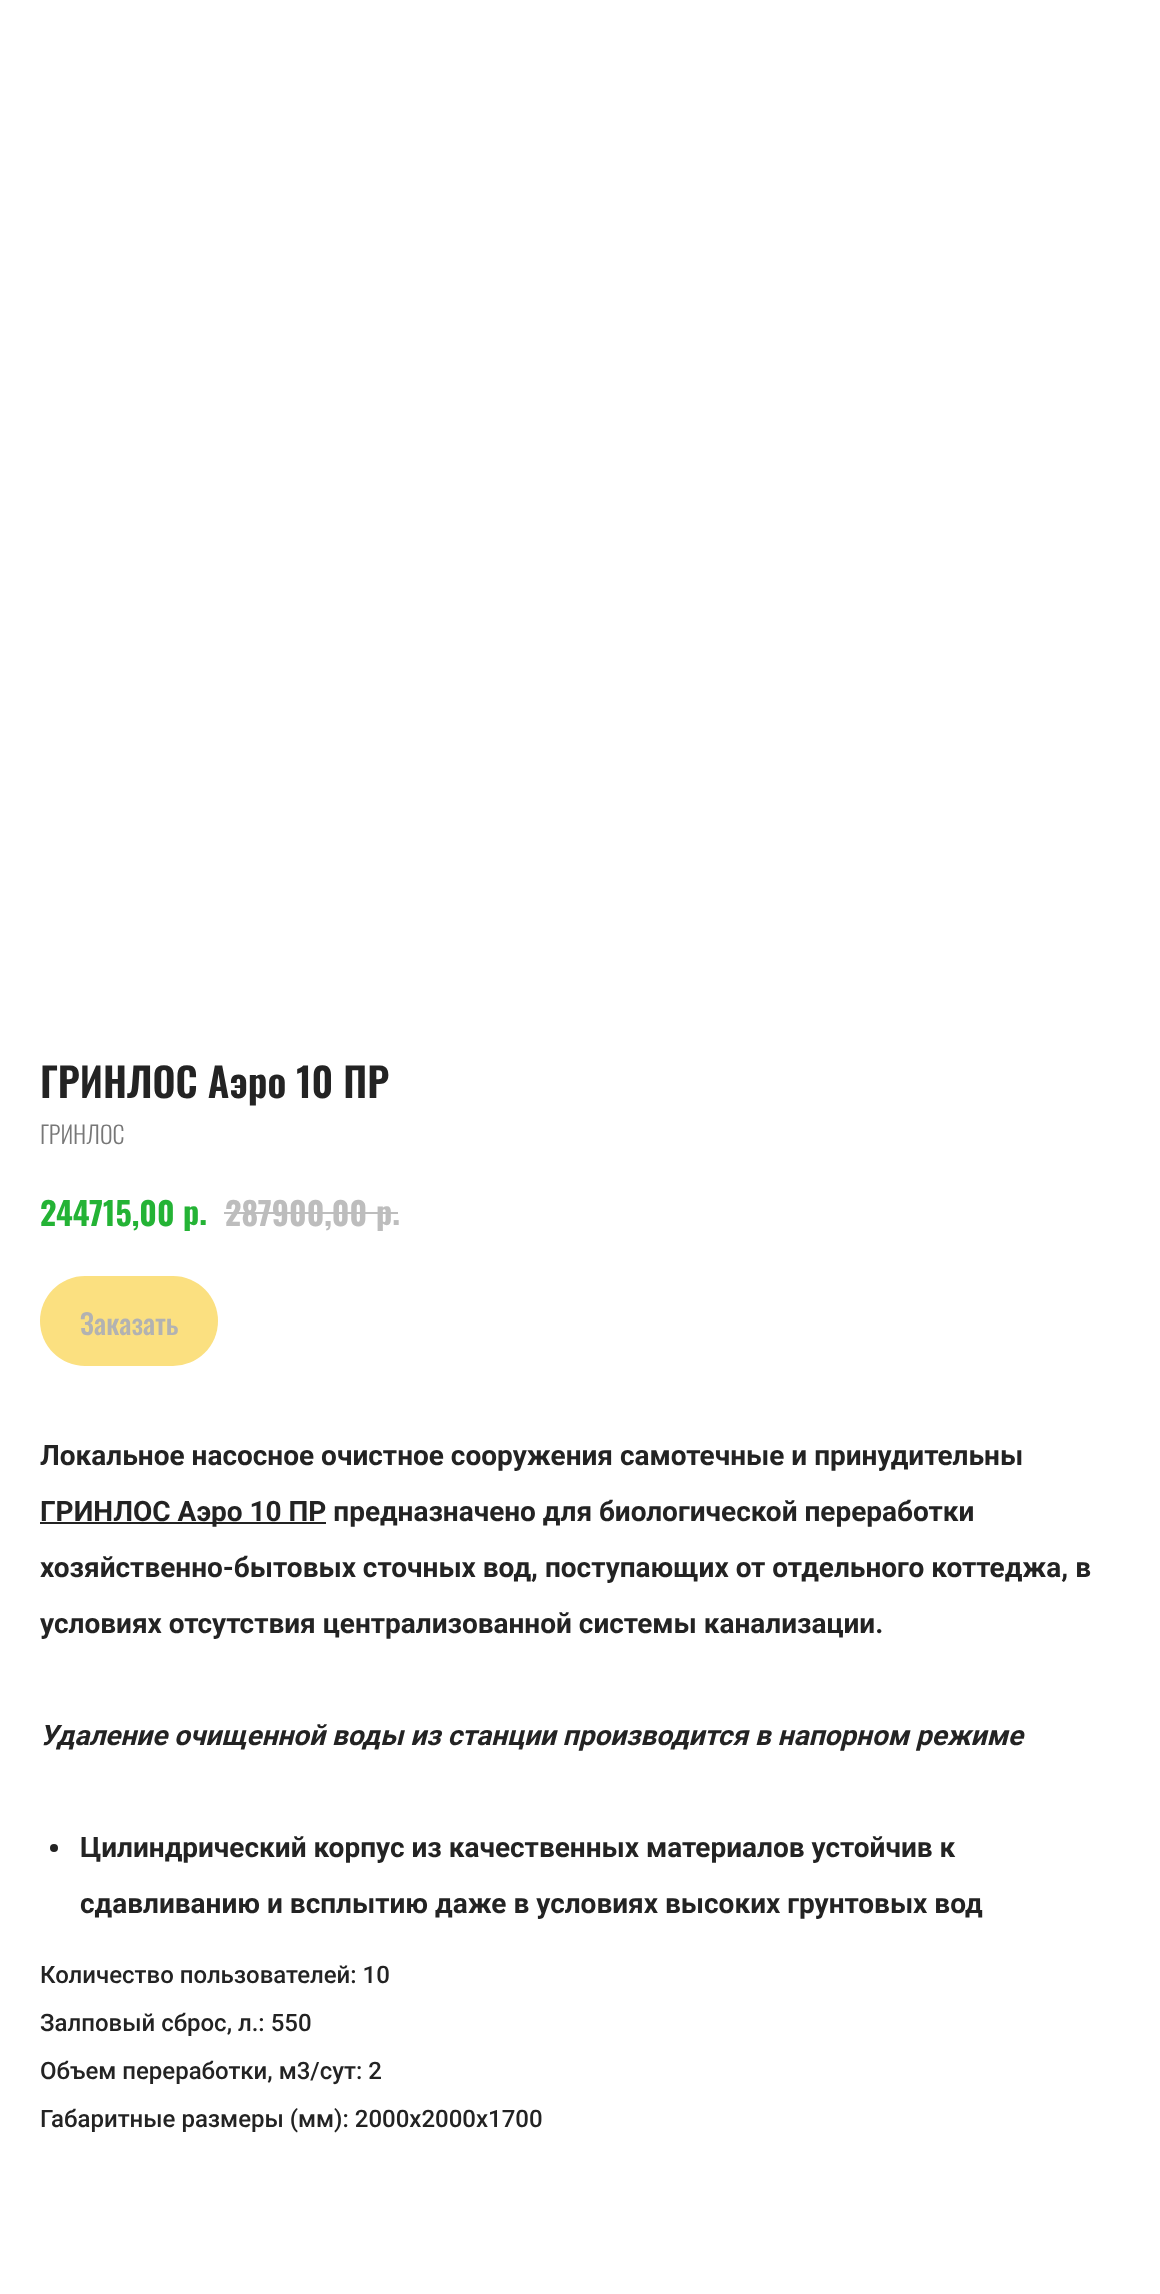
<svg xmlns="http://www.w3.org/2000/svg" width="1160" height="2294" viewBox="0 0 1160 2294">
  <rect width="100%" height="100%" fill="rgb(255,255,255)"/>
  <text x="40" y="1098" font-family="Oswald" font-size="40" font-weight="600" fill="rgb(35,35,35)">ГРИНЛОС Аэро 10 ПР</text>
  <text x="40" y="1144" font-family="Oswald" font-size="24" font-weight="300" fill="rgb(119,119,119)">ГРИНЛОС</text>
  <g font-family="Oswald" font-size="32" font-weight="bold" fill="rgb(36,179,53)">
    <text x="40" y="1226">244715,00</text>
    <text x="183" y="1225">р.</text>
  </g>
  <g font-family="Oswald" font-size="32" font-weight="bold" fill="rgb(189,189,189)">
    <text x="225" y="1226">287900,00</text>
    <text x="376" y="1225">р.</text>
  </g>
  <rect x="224" y="1212" width="174" height="2" fill="rgb(189,189,189)"/>
  <rect x="40" y="1276" width="178" height="90" rx="45" fill="rgb(251,224,128)"/>
  <text x="80" y="1335" font-family="Oswald" font-size="28" font-weight="500" fill="rgb(178,178,178)">Заказать</text>
  <text x="40" y="1465" font-family="Roboto" font-size="28" font-weight="bold" fill="rgb(35,35,35)">Локальное насосное очистное сооружения самотечные и принудительны</text>
  <rect x="40" y="1522" width="286" height="2" fill="rgb(35,35,35)"/>
  <g font-family="Roboto" font-size="28" font-weight="bold" fill="rgb(35,35,35)">
    <text x="40" y="1521">ГРИНЛОС Аэро 10 ПР предназначено для биологической переработки</text>
    <text x="40" y="1577">хозяйственно-бытовых сточных вод, поступающих от отдельного коттеджа, в</text>
    <text x="40" y="1633">условиях отсутствия централизованной системы канализации.</text>
  </g>
  <text x="40" y="1745" font-family="Roboto" font-size="28" font-weight="bold" font-style="italic" fill="rgb(35,35,35)">Удаление очищенной воды из станции производится в напорном режиме</text>
  <circle cx="54" cy="1848" r="4" fill="rgb(35,35,35)"/>
  <g font-family="Roboto" font-size="28" font-weight="bold" fill="rgb(35,35,35)">
    <text x="80" y="1857">Цилиндрический корпус из качественных материалов устойчив к</text>
    <text x="80" y="1913">сдавливанию и всплытию даже в условиях высоких грунтовых вод</text>
  </g>
  <g font-family="Roboto" font-size="24" font-weight="500" fill="rgb(35,35,35)">
    <text x="40" y="1983">Количество пользователей: 10</text>
    <text x="40" y="2031">Залповый сброс, л.: 550</text>
    <text x="40" y="2079">Объем переработки, м3/сут: 2</text>
    <text x="40" y="2127">Габаритные размеры (мм): 2000х2000х1700</text>
  </g>
</svg>
